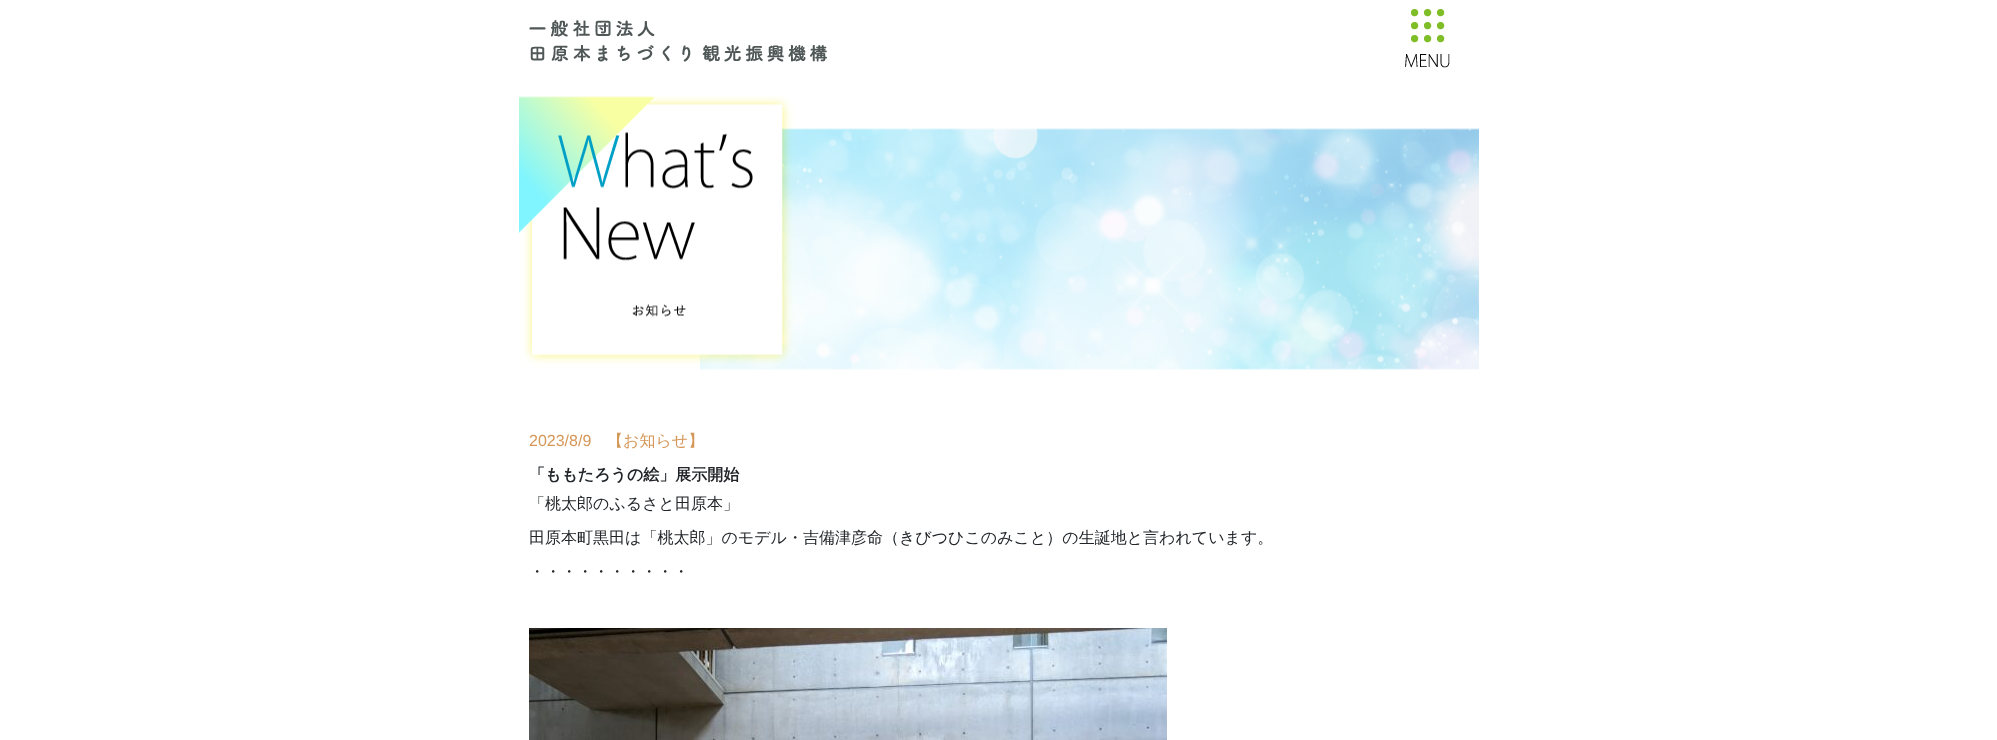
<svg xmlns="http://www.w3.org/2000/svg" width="1997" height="740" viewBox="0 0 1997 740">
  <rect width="100%" height="100%" fill="rgb(255,255,255)"/>
  <image x="529" y="20" width="298" height="42" href="pic1.png"/>
  <image x="1405" y="9" width="45" height="59" href="pic2.png"/>
  <image x="519" y="96" width="960" height="274" href="pic3.png"/>
  <text x="529" y="446" font-family="Liberation Sans" font-size="16" fill="rgb(213,151,88)">2023/8/9</text>
  <text x="607" y="446" font-family="WenQuanYi Zen Hei" font-size="16" font-weight="500" fill="rgb(213,151,88)">【お知らせ】</text>
  <text x="529" y="480" font-family="WenQuanYi Zen Hei" font-size="16" font-weight="bold" fill="rgb(33,37,41)">「ももたろうの絵」展示開始</text>
  <g font-family="WenQuanYi Zen Hei" font-size="16" font-weight="500" fill="rgb(33,37,41)">
    <text x="529" y="509">「桃太郎のふるさと田原本」</text>
    <text x="529" y="543">田原本町黒田は「桃太郎」のモデル・吉備津彦命（きびつひこのみこと）の生誕地と言われています。</text>
    <text x="529" y="577">・・・・・・・・・・</text>
  </g>
  <image x="529" y="628" width="638" height="112" href="pic4.png"/>
</svg>
